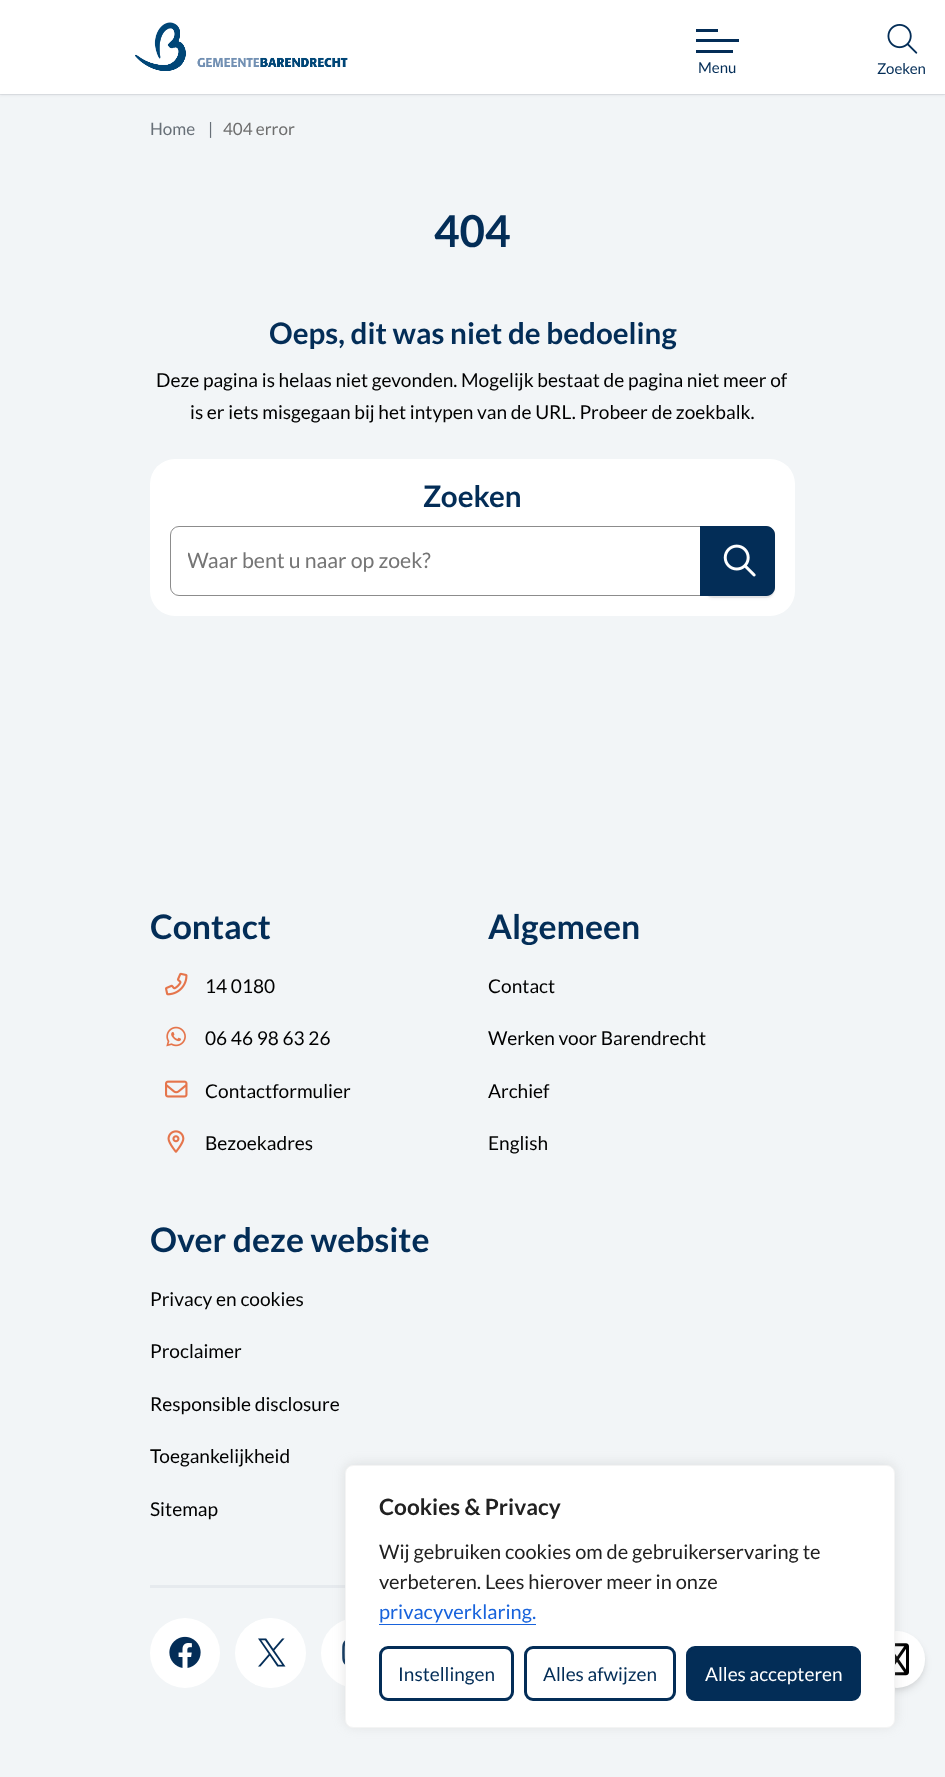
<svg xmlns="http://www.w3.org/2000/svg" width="945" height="1777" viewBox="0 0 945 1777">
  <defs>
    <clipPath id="clip1"><rect x="188" y="546" width="570" height="27"/></clipPath>
  </defs>
  <rect width="100%" height="100%" fill="rgb(242,245,247)"/>
  <rect x="0" y="3" width="945" height="93" fill="rgba(40,44,53,0.05)" filter="blur(1px)"/>
  <rect x="0" y="1" width="945" height="94" fill="rgba(40,44,53,0.08)" filter="blur(0.5px)"/>
  <rect x="0" y="0" width="945" height="94" fill="rgb(255,255,255)"/>
  <image x="135" y="22" width="213" height="49" href="pic1.png"/>
  <rect x="696" y="29" width="22" height="3" fill="rgb(3,45,87)"/>
  <rect x="696" y="39" width="43" height="3" fill="rgb(3,45,87)"/>
  <rect x="696" y="50" width="37" height="3" fill="rgb(3,45,87)"/>
  <text x="698" y="73" font-family="Lato" font-size="15" fill="rgb(3,45,87)">Menu</text>
  <image x="887" y="24" width="31" height="30" href="pic2.png"/>
  <text x="877" y="74" font-family="Lato" font-size="15" fill="rgb(3,45,87)">Zoeken</text>
  <g font-family="Lato" font-size="17" fill="rgb(104,112,120)">
    <text x="150" y="135">Home</text>
    <text x="208" y="135">|</text>
  </g>
  <text x="223" y="135" font-family="Lato" font-size="17" fill="rgb(110,110,110)">404 error</text>
  <text x="434" y="247" font-family="Lato" font-size="44" font-weight="bold" fill="rgb(3,45,87)">404</text>
  <text x="269" y="344" font-family="Lato" font-size="29.6" font-weight="bold" fill="rgb(3,45,87)">Oeps, dit was niet de bedoeling</text>
  <g font-family="Lato" font-size="19.1" fill="rgb(0,0,0)">
    <text x="156" y="387">Deze pagina is helaas niet gevonden. Mogelijk bestaat de pagina niet meer of</text>
    <text x="190" y="419">is er iets misgegaan bij het intypen van de URL. Probeer de zoekbalk.</text>
  </g>
  <rect x="150" y="459" width="645" height="157" rx="25" fill="rgb(255,255,255)"/>
  <text x="423" y="507" font-family="Lato" font-size="29.6" font-weight="bold" fill="rgb(3,45,87)">Zoeken</text>
  <rect x="170.5" y="526.5" width="604" height="69" rx="8.5" fill="none" stroke="rgb(140,140,140)"/>
  <g clip-path="url(#clip1)">
    <text x="187" y="568" font-family="Lato" font-size="21.25" fill="rgb(117,117,117)">Waar bent u naar op zoek?</text>
  </g>
  <rect x="704" y="529" width="71" height="70" rx="9" fill="rgba(40,44,53,0.05)" filter="blur(1px)"/>
  <rect x="704" y="528" width="71" height="70" rx="9" fill="rgba(40,44,53,0.08)" filter="blur(0.5px)"/>
  <path d="M700 526H766C771 526 775 530 775 535V587C775 592 771 596 766 596H700Z" fill="rgb(3,45,87)"/>
  <image x="723" y="544" width="33" height="33" href="pic3.png"/>
  <text x="150" y="939" font-family="Lato" font-size="33.75" font-weight="bold" fill="rgb(3,45,87)">Contact</text>
  <image x="165" y="972" width="23" height="24" href="pic4.png"/>
  <text x="205" y="993" font-family="Lato" font-size="19.1" fill="rgb(0,0,0)">14 0180</text>
  <image x="166" y="1026" width="20" height="21" href="pic5.png"/>
  <text x="205" y="1045" font-family="Lato" font-size="19.1" fill="rgb(0,0,0)">06 46 98 63 26</text>
  <image x="165" y="1080" width="23" height="18" href="pic6.png"/>
  <text x="205" y="1098" font-family="Lato" font-size="19.1" fill="rgb(0,0,0)">Contactformulier</text>
  <image x="167" y="1130" width="18" height="23" href="pic7.png"/>
  <text x="205" y="1150" font-family="Lato" font-size="19.1" fill="rgb(0,0,0)">Bezoekadres</text>
  <text x="488" y="939" font-family="Lato" font-size="33.75" font-weight="bold" fill="rgb(3,45,87)">Algemeen</text>
  <g font-family="Lato" font-size="19.1" fill="rgb(0,0,0)">
    <text x="488" y="993">Contact</text>
    <text x="488" y="1045">Werken voor Barendrecht</text>
    <text x="488" y="1098">Archief</text>
    <text x="488" y="1150">English</text>
  </g>
  <text x="150" y="1252" font-family="Lato" font-size="33.75" font-weight="bold" fill="rgb(3,45,87)">Over deze website</text>
  <g font-family="Lato" font-size="19.1" fill="rgb(0,0,0)">
    <text x="150" y="1306">Privacy en cookies</text>
    <text x="150" y="1358">Proclaimer</text>
    <text x="150" y="1411">Responsible disclosure</text>
    <text x="150" y="1463">Toegankelijkheid</text>
    <text x="150" y="1516">Sitemap</text>
  </g>
  <rect x="150" y="1585" width="195" height="3" fill="rgb(230,234,238)"/>
  <circle cx="185" cy="1653" r="35" fill="rgb(255,255,255)"/>
  <image x="169" y="1636" width="32" height="32" href="pic8.png"/>
  <rect x="235" y="1618" width="71" height="70" rx="35" fill="rgb(255,255,255)"/>
  <image x="258" y="1638" width="28" height="29" href="pic9.png"/>
  <circle cx="356" cy="1653" r="35" fill="rgb(255,255,255)"/>
  <image x="342" y="1640" width="3" height="25" href="pic10.png"/>
  <rect x="870" y="1635" width="54" height="54" rx="27" fill="rgba(0,0,0,0.06)" filter="blur(2.5px)"/>
  <rect x="870" y="1638" width="54" height="53" rx="26.5" fill="rgba(0,0,0,0.1)" filter="blur(4px)"/>
  <rect x="869" y="1631" width="56" height="57" rx="28" fill="rgb(255,255,255)"/>
  <image x="895" y="1643" width="14" height="33" href="pic11.png"/>
  <rect x="345" y="1464" width="550" height="262" rx="8" fill="rgba(172,171,171,0.3)" filter="blur(6px)"/>
  <rect x="345.5" y="1465.5" width="549" height="262" rx="7.5" fill="rgb(255,255,255)" stroke="rgb(244,244,244)"/>
  <text x="379" y="1515" font-family="Lato" font-size="22.5" font-weight="bold" fill="rgb(33,33,33)">Cookies &amp; Privacy</text>
  <g font-family="Lato" font-size="20" fill="rgb(33,33,33)">
    <text>
      <tspan x="379" y="1559">Wij gebruiken cookies om de gebruikerservaring te</tspan>
      <tspan x="379" y="1589">verbeteren. Lees hierover meer in onze</tspan>
    </text>
  </g>
  <text x="379" y="1619" font-family="Lato" font-size="20" fill="rgb(24,99,220)">privacyverklaring.</text>
  <rect x="379" y="1624" width="157" height="1" fill="rgb(24,99,220)"/>
  <rect x="380.5" y="1647.5" width="132" height="52" rx="7.5" fill="none" stroke="rgb(3,45,87)" stroke-width="3"/>
  <text x="398" y="1681" font-family="Lato" font-size="19" fill="rgb(3,45,87)">Instellingen</text>
  <rect x="525.5" y="1647.5" width="149" height="52" rx="7.5" fill="none" stroke="rgb(3,45,87)" stroke-width="3"/>
  <text x="543" y="1681" font-family="Lato" font-size="19" fill="rgb(3,45,87)">Alles afwijzen</text>
  <rect x="687.5" y="1647.5" width="172" height="52" rx="7.5" fill="rgb(3,45,87)" stroke="rgb(3,45,87)" stroke-width="3"/>
  <text x="705" y="1681" font-family="Lato" font-size="19" fill="rgb(255,255,255)">Alles accepteren</text>
</svg>
